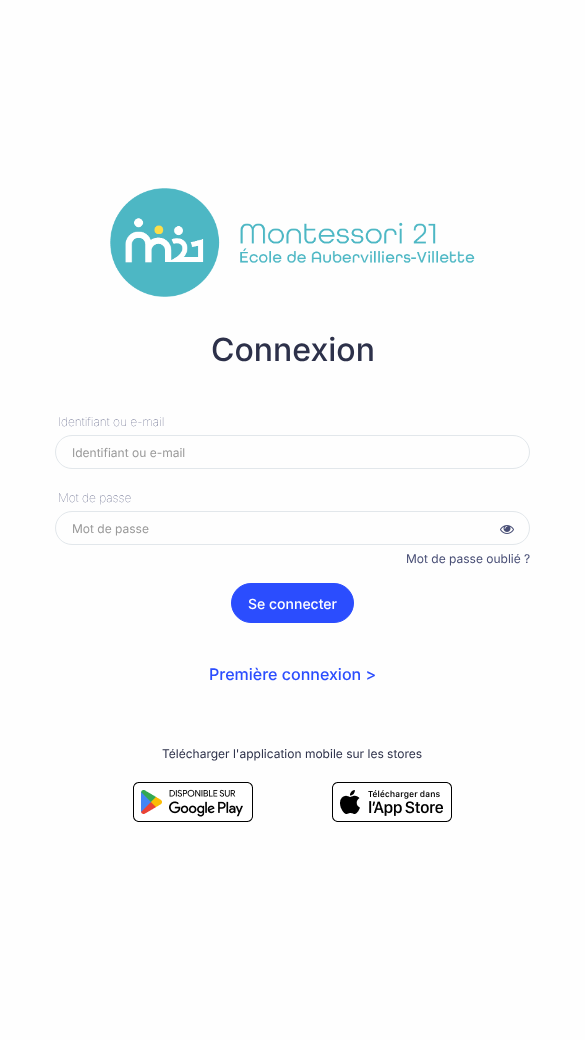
<svg xmlns="http://www.w3.org/2000/svg" width="585" height="1040" viewBox="0 0 585 1040">
  <rect width="100%" height="100%" fill="rgb(254,254,254)"/>
  <image x="110" y="188" width="365" height="109" href="pic1.png"/>
  <text x="211" y="361" font-family="Inter" font-size="32" font-weight="500" fill="rgb(45,49,74)">Connexion</text>
  <text x="58" y="426" font-family="Inter" font-size="12" font-weight="100" fill="rgb(72,78,117)">Identifiant ou e-mail</text>
  <rect x="55.5" y="435.5" width="474" height="33" rx="16.5" fill="none" stroke="rgb(226,231,235)"/>
  <text x="72" y="457" font-family="Inter" font-size="12" fill="rgb(153,153,153)">Identifiant ou e-mail</text>
  <text x="58" y="502" font-family="Inter" font-size="12" font-weight="100" fill="rgb(72,78,117)">Mot de passe</text>
  <rect x="55.5" y="511.5" width="474" height="33" rx="16.5" fill="none" stroke="rgb(226,231,235)"/>
  <text x="72" y="533" font-family="Inter" font-size="12" fill="rgb(153,153,153)">Mot de passe</text>
  <image x="500" y="525" width="14" height="9" href="pic2.png"/>
  <text x="406" y="563" font-family="Inter" font-size="12" fill="rgb(72,78,117)">Mot de passe oublié ?</text>
  <rect x="231.5" y="583.5" width="122" height="39" rx="19.5" fill="rgb(43,77,254)" stroke="rgb(43,77,254)"/>
  <text x="248" y="609" font-family="Inter" font-size="14" font-weight="500" fill="rgb(255,255,255)">Se connecter</text>
  <text x="209" y="680" font-family="Inter" font-size="16" font-weight="500" fill="rgb(43,77,254)">Première connexion &gt;</text>
  <text x="162" y="758" font-family="Inter" font-size="12" fill="rgb(45,49,74)">Télécharger l'application mobile sur les stores</text>
  <image x="133" y="782" width="120" height="40" href="pic3.png"/>
  <image x="332" y="782" width="120" height="40" href="pic4.png"/>
</svg>
